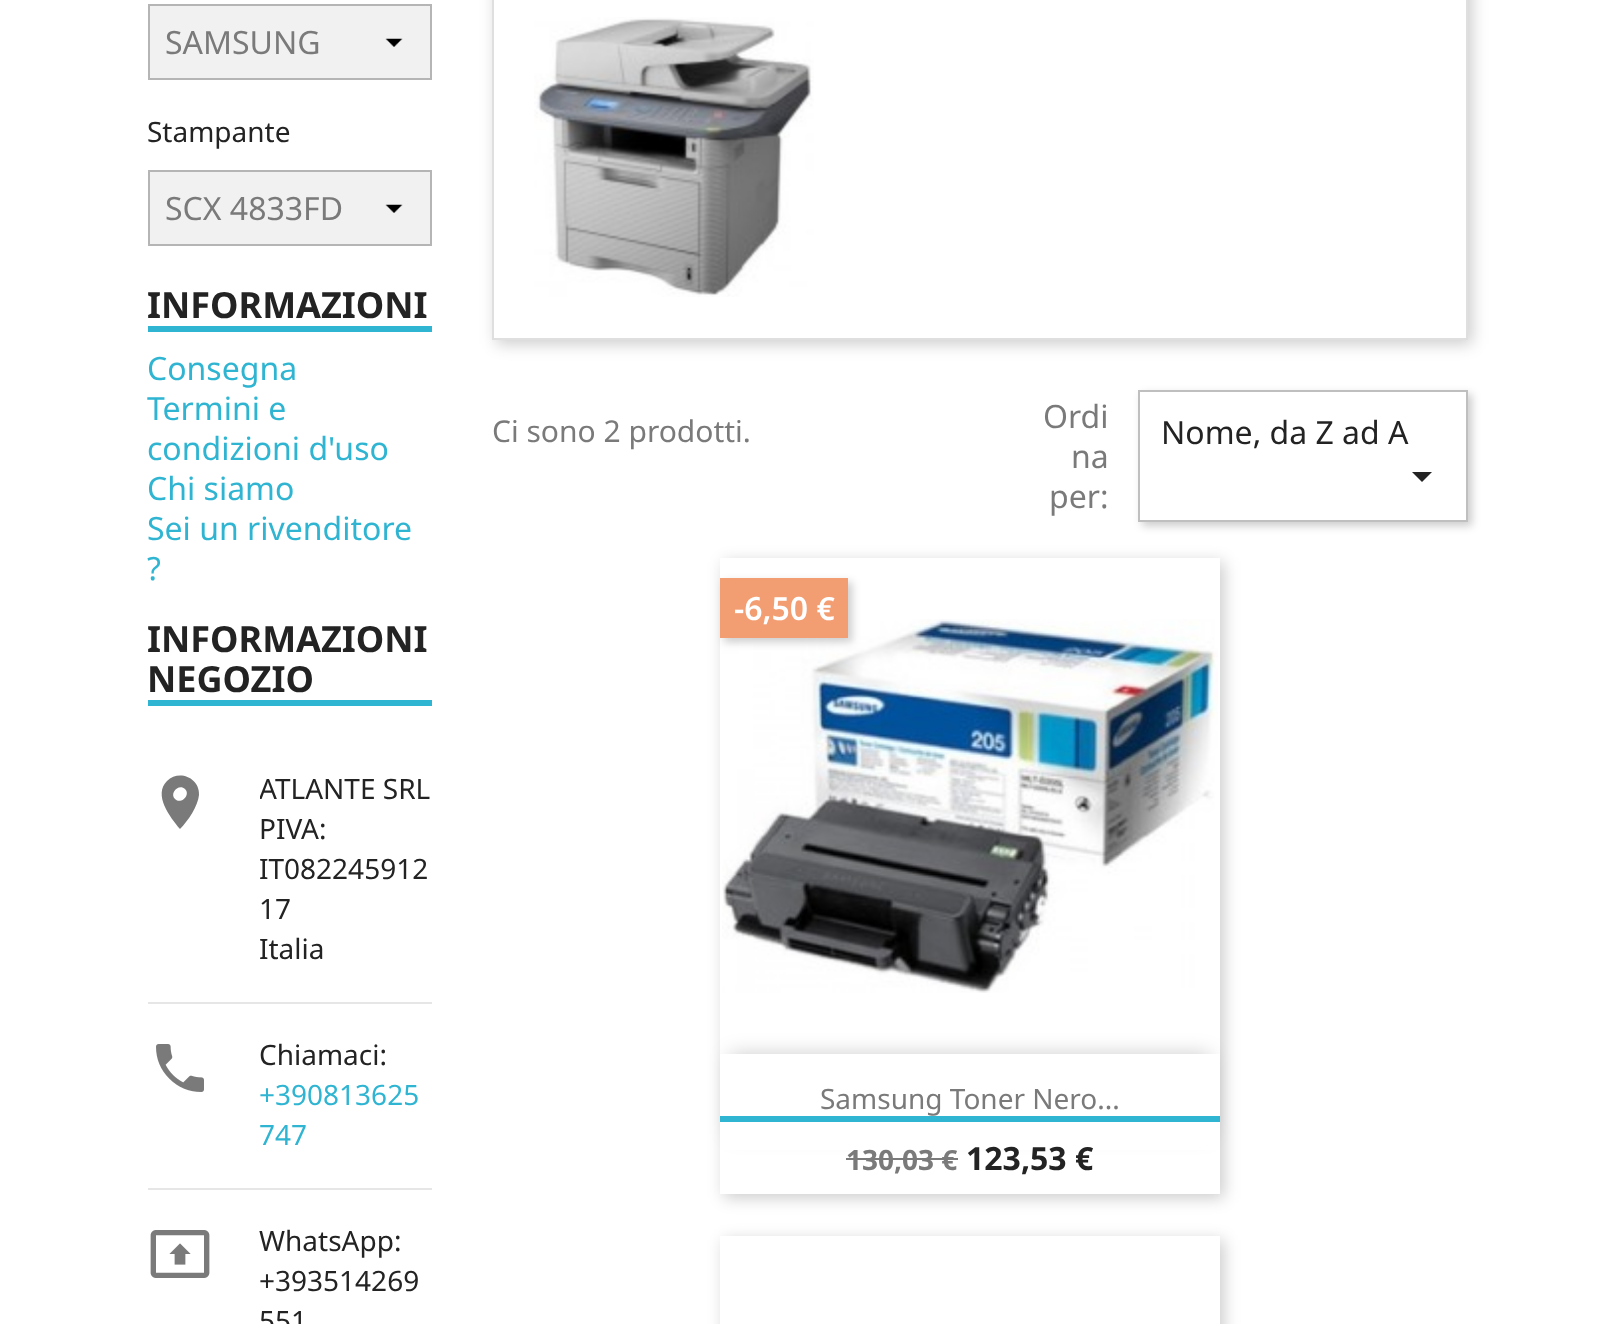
<svg xmlns="http://www.w3.org/2000/svg" width="1613" height="1324" viewBox="0 0 1613 1324">
  <defs>
    <clipPath id="clip1"><rect x="260" y="770" width="172" height="200"/></clipPath>
    <clipPath id="clip2"><path d="M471 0H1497V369H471ZM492-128H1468V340H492Z" clip-rule="evenodd"/></clipPath>
    <clipPath id="clip3"><path d="M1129 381H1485V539H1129ZM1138 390H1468V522H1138Z" clip-rule="evenodd"/></clipPath>
    <clipPath id="clip4"><path d="M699 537H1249V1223H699ZM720 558H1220V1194H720Z" clip-rule="evenodd"/></clipPath>
    <clipPath id="clip5"><path d="M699 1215H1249V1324H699ZM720 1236H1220V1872H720Z" clip-rule="evenodd"/></clipPath>
  </defs>
  <rect width="100%" height="100%" fill="rgb(255,255,255)"/>
  <rect x="150" y="6" width="280" height="72" fill="rgb(241,241,241)"/>
  <image x="385" y="38" width="18" height="9" href="pic1.png"/>
  <rect x="149" y="5" width="282" height="74" fill="none" stroke="rgb(181,181,181)" stroke-width="2"/>
  <text x="165" y="54" font-family="Noto Sans" font-size="32" fill="rgb(122,122,122)">SAMSUNG</text>
  <text x="147" y="142" font-family="Noto Sans" font-size="28" fill="rgb(35,35,35)">Stampante</text>
  <rect x="150" y="172" width="280" height="72" fill="rgb(241,241,241)"/>
  <image x="385" y="204" width="18" height="9" href="pic1.png"/>
  <rect x="149" y="171" width="282" height="74" fill="none" stroke="rgb(181,181,181)" stroke-width="2"/>
  <text x="165" y="220" font-family="Noto Sans" font-size="32" fill="rgb(122,122,122)">SCX 4833FD</text>
  <rect x="148" y="326" width="284" height="6" fill="rgb(47,181,210)"/>
  <text x="147" y="318" font-family="Noto Sans" font-size="36" font-weight="bold" fill="rgb(35,35,35)">INFORMAZIONI</text>
  <g font-family="Noto Sans" font-size="32" fill="rgb(47,181,210)">
    <text>
      <tspan x="147" y="380">Consegna</tspan>
      <tspan x="147" y="420">Termini e</tspan>
      <tspan x="147" y="460">condizioni d'uso</tspan>
      <tspan x="147" y="500">Chi siamo</tspan>
      <tspan x="147" y="540">Sei un rivenditore</tspan>
      <tspan x="147" y="580">?</tspan>
    </text>
  </g>
  <rect x="148" y="700" width="284" height="6" fill="rgb(47,181,210)"/>
  <g font-family="Noto Sans" font-size="36" font-weight="bold" fill="rgb(35,35,35)">
    <text>
      <tspan x="147" y="652">INFORMAZIONI</tspan>
      <tspan x="147" y="692">NEGOZIO</tspan>
    </text>
  </g>
  <path d="M175 799C181 805 191 795 185 789C179 783 169 793 175 799ZM167 781C179 769 200 778 199 795C198 806 188 821 180 829C170 817 153 795 167 781Z" fill="rgb(122,122,122)"/>
  <g clip-path="url(#clip1)">
    <text x="259" y="799" font-family="Noto Sans" font-size="28" fill="rgb(35,35,35)">ATLANTE SRL</text>
  </g>
  <g font-family="Noto Sans" font-size="28" fill="rgb(35,35,35)">
    <text>
      <tspan x="259" y="839">PIVA:</tspan>
      <tspan x="259" y="879">IT082245912</tspan>
      <tspan x="259" y="919">17</tspan>
      <tspan x="259" y="959">Italia</tspan>
    </text>
  </g>
  <rect x="148" y="1002" width="284" height="2" fill="rgb(230,230,230)"/>
  <image x="156" y="1044" width="48" height="48" href="pic2.png"/>
  <text x="259" y="1065" font-family="Noto Sans" font-size="28" fill="rgb(35,35,35)">Chiamaci:</text>
  <g font-family="Noto Sans" font-size="28" fill="rgb(47,181,210)">
    <text>
      <tspan x="259" y="1105">+390813625</tspan>
      <tspan x="259" y="1145">747</tspan>
    </text>
  </g>
  <rect x="148" y="1188" width="284" height="2" fill="rgb(230,230,230)"/>
  <image x="150" y="1230" width="60" height="48" href="pic3.png"/>
  <g font-family="Noto Sans" font-size="28" fill="rgb(35,35,35)">
    <text>
      <tspan x="259" y="1251">WhatsApp:</tspan>
      <tspan x="259" y="1291">+393514269</tspan>
      <tspan x="259" y="1331">551</tspan>
    </text>
  </g>
  <g clip-path="url(#clip2)">
    <rect x="496" y="-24" width="976" height="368" fill="rgba(0,0,0,0.2)" filter="blur(8px)"/>
  </g>
  <rect x="493" y="-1" width="974" height="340" fill="none" stroke="rgb(223,223,223)" stroke-width="2"/>
  <image x="534" y="17" width="280" height="280" href="pic4.png"/>
  <text x="492" y="442" font-family="Noto Sans" font-size="30" fill="rgb(122,122,122)">Ci sono 2 prodotti.</text>
  <g font-family="Noto Sans" font-size="32" fill="rgb(122,122,122)">
    <text x="1043" y="428">Ordi</text>
    <text x="1071" y="468">na</text>
    <text x="1049" y="508">per:</text>
  </g>
  <g clip-path="url(#clip3)">
    <rect x="1142" y="394" width="330" height="132" fill="rgba(0,0,0,0.2)" filter="blur(4px)"/>
  </g>
  <rect x="1139" y="391" width="328" height="130" fill="none" stroke="rgb(191,191,191)" stroke-width="2"/>
  <text x="1161" y="444" font-family="Noto Sans" font-size="32" fill="rgb(35,35,35)">Nome, da Z ad A</text>
  <path d="M1412 472H1432L1422 482Z" fill="rgb(35,35,35)"/>
  <g clip-path="url(#clip4)">
    <rect x="724" y="562" width="500" height="636" fill="rgba(0,0,0,0.2)" filter="blur(8px)"/>
  </g>
  <image x="722" y="619" width="496" height="374" href="pic5.png"/>
  <rect x="724" y="582" width="128" height="60" fill="rgba(0,0,0,0.2)" filter="blur(4px)"/>
  <rect x="720" y="578" width="128" height="60" fill="rgb(243,157,114)"/>
  <text x="734" y="620" font-family="Noto Sans" font-size="32" font-weight="600" fill="rgb(255,255,255)">-6,50 €</text>
  <rect x="730" y="1054" width="480" height="80" fill="rgba(0,0,0,0.2)" filter="blur(10px)"/>
  <rect x="720" y="1054" width="500" height="96" fill="rgb(255,255,255)"/>
  <rect x="720" y="1116" width="500" height="6" fill="rgb(47,181,210)"/>
  <text x="820" y="1109" font-family="Noto Sans" font-size="28" fill="rgb(122,122,122)">Samsung Toner Nero...</text>
  <text x="846" y="1170" font-family="Noto Sans" font-size="28" font-weight="bold" fill="rgb(122,122,122)">130,03 €</text>
  <rect x="846" y="1158" width="112" height="2" fill="rgb(122,122,122)"/>
  <text x="966" y="1170" font-family="Noto Sans" font-size="32" font-weight="bold" fill="rgb(35,35,35)">123,53 €</text>
  <g clip-path="url(#clip5)">
    <rect x="724" y="1240" width="500" height="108" fill="rgba(0,0,0,0.2)" filter="blur(8px)"/>
  </g>
</svg>
